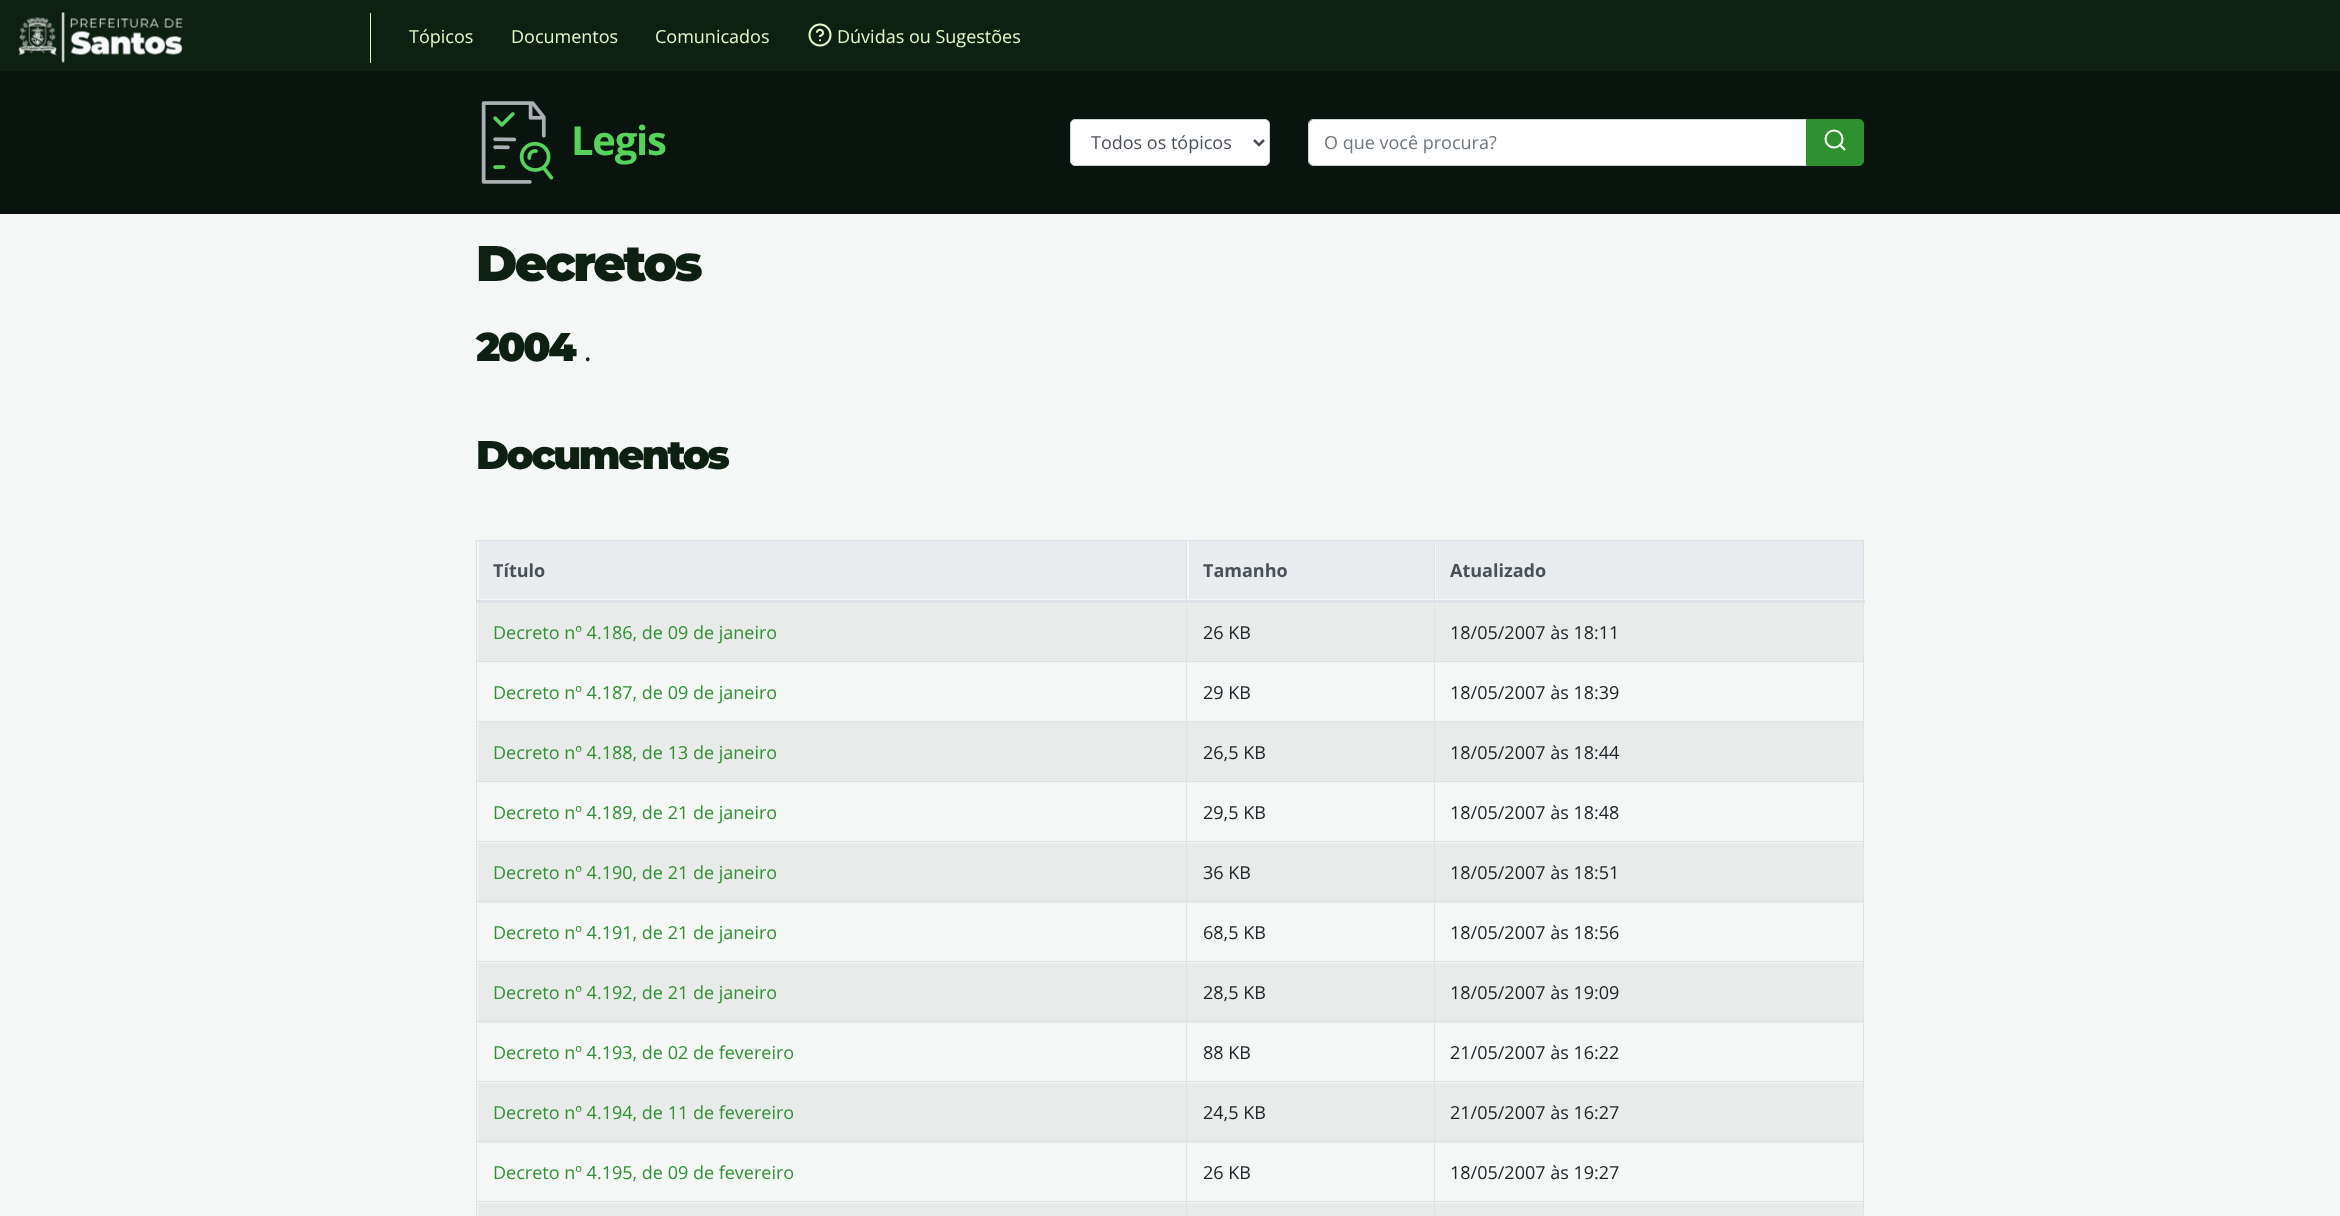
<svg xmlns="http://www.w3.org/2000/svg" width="2340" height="1216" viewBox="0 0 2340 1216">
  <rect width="100%" height="100%" fill="rgb(245,247,247)"/>
  <rect x="0" y="0" width="2340" height="71" fill="rgb(13,32,17)"/>
  <image x="18" y="12" width="165" height="51" href="pic1.png"/>
  <rect x="370" y="13" width="1" height="50" fill="rgb(227,249,199)"/>
  <g font-family="Open Sans" font-size="18" fill="rgb(227,249,199)">
    <text x="409" y="43">Tópicos</text>
    <text x="511" y="43">Documentos</text>
    <text x="655" y="43">Comunicados</text>
  </g>
  <image x="808" y="23" width="24" height="24" href="pic2.png"/>
  <text x="837" y="43" font-family="Open Sans" font-size="18" fill="rgb(227,249,199)">Dúvidas ou Sugestões</text>
  <rect x="0" y="71" width="2340" height="143" fill="rgb(10,20,14)"/>
  <image x="481" y="101" width="73" height="83" href="pic3.png"/>
  <text x="571" y="155" font-family="Open Sans" font-size="40" font-weight="bold" letter-spacing="-1.25" fill="rgb(87,211,92)">Legis</text>
  <rect x="1070.5" y="119.5" width="199" height="46" rx="4.5" fill="rgb(255,255,255)" stroke="rgb(206,212,218)"/>
  <path d="M1254 140L1259 145L1264 140" fill="none" stroke="rgb(73,80,87)" stroke-width="2.5"/>
  <text x="1091" y="149" font-family="Open Sans" font-size="18" fill="rgb(73,80,87)">Todos os tópicos</text>
  <path d="M1313 120H1806V165H1313C1311 165 1309 163 1309 161V124C1309 122 1311 120 1313 120Z" fill="rgb(255,255,255)"/>
  <path d="M1313 119.5H1807.5V165.5H1313C1310.5 165.5 1308.5 163.5 1308.5 161V124C1308.5 121.5 1310.5 119.5 1313 119.5Z" fill="none" stroke="rgb(206,212,218)"/>
  <text x="1324" y="149" font-family="Open Sans" font-size="18" fill="rgb(108,117,125)">O que você procura?</text>
  <path d="M1806.5 119.5H1859C1861.5 119.5 1863.5 121.5 1863.5 124V161C1863.5 163.5 1861.5 165.5 1859 165.5H1806.5Z" fill="rgb(46,145,47)" stroke="rgb(46,145,47)"/>
  <circle cx="1834" cy="139" r="8.5" fill="none" stroke="rgb(255,255,255)" stroke-width="2.1"/>
  <path d="M1844.5 149.5L1840 145" fill="none" stroke="rgb(255,255,255)" stroke-width="2.1" stroke-linecap="round" stroke-linejoin="round"/>
  <text x="476" y="281" font-family="Montserrat" font-size="50" font-weight="900" letter-spacing="-2.5" fill="rgb(13,32,17)">Decretos</text>
  <text x="476" y="361" font-family="Montserrat" font-size="40" font-weight="900" letter-spacing="-2.5" fill="rgb(13,32,17)">2004</text>
  <text x="584" y="361" font-family="Montserrat" font-size="35" letter-spacing="-2.5" fill="rgb(13,32,17)">.</text>
  <text x="476" y="469" font-family="Montserrat" font-size="40" font-weight="900" letter-spacing="-2.5" fill="rgb(13,32,17)">Documentos</text>
  <rect x="476" y="540" width="1388" height="1" fill="rgb(222,226,230)"/>
  <rect x="1863" y="540" width="1" height="676" fill="rgb(222,226,230)"/>
  <rect x="476" y="540" width="1" height="676" fill="rgb(222,226,230)"/>
  <rect x="479" y="541" width="707" height="58" fill="rgb(233,236,239)"/>
  <text x="493" y="577" font-family="Open Sans" font-size="18" font-weight="bold" fill="rgb(73,80,87)">Título</text>
  <rect x="1189" y="541" width="245" height="58" fill="rgb(233,236,239)"/>
  <text x="1203" y="577" font-family="Open Sans" font-size="18" font-weight="bold" fill="rgb(73,80,87)">Tamanho</text>
  <rect x="1436" y="541" width="427" height="58" fill="rgb(233,236,239)"/>
  <rect x="478" y="603" width="1385" height="58" fill="rgb(233,235,235)"/>
  <rect x="1434" y="661" width="430" height="1" fill="rgb(222,226,230)"/>
  <rect x="478" y="722" width="1385" height="59" fill="rgb(233,235,235)"/>
  <rect x="1434" y="721" width="430" height="1" fill="rgb(222,226,230)"/>
  <rect x="1434" y="781" width="430" height="1" fill="rgb(222,226,230)"/>
  <rect x="1434" y="841" width="430" height="1" fill="rgb(222,226,230)"/>
  <rect x="478" y="843" width="1385" height="60" fill="rgb(233,235,235)"/>
  <rect x="1434" y="901" width="430" height="1" fill="rgb(222,226,230)"/>
  <rect x="1434" y="961" width="430" height="1" fill="rgb(222,226,230)"/>
  <rect x="478" y="963" width="1385" height="60" fill="rgb(233,235,235)"/>
  <rect x="1434" y="1021" width="430" height="1" fill="rgb(222,226,230)"/>
  <rect x="1434" y="1081" width="430" height="1" fill="rgb(222,226,230)"/>
  <rect x="478" y="1083" width="1385" height="60" fill="rgb(233,235,235)"/>
  <rect x="1434" y="1141" width="430" height="1" fill="rgb(222,226,230)"/>
  <rect x="1434" y="1201" width="430" height="1" fill="rgb(222,226,230)"/>
  <rect x="478" y="1203" width="1385" height="13" fill="rgb(233,235,235)"/>
  <rect x="1434" y="1201" width="1" height="15" fill="rgb(222,226,230)"/>
  <rect x="1186" y="1201" width="249" height="1" fill="rgb(222,226,230)"/>
  <rect x="1434" y="1141" width="1" height="62" fill="rgb(222,226,230)"/>
  <rect x="1186" y="1141" width="249" height="1" fill="rgb(222,226,230)"/>
  <rect x="1434" y="1081" width="1" height="62" fill="rgb(222,226,230)"/>
  <rect x="1186" y="1081" width="249" height="1" fill="rgb(222,226,230)"/>
  <rect x="1434" y="1021" width="1" height="62" fill="rgb(222,226,230)"/>
  <rect x="1186" y="1021" width="249" height="1" fill="rgb(222,226,230)"/>
  <rect x="1434" y="961" width="1" height="62" fill="rgb(222,226,230)"/>
  <rect x="1186" y="961" width="249" height="1" fill="rgb(222,226,230)"/>
  <rect x="1434" y="901" width="1" height="62" fill="rgb(222,226,230)"/>
  <rect x="1186" y="901" width="249" height="1" fill="rgb(222,226,230)"/>
  <rect x="1434" y="841" width="1" height="62" fill="rgb(222,226,230)"/>
  <rect x="1186" y="841" width="249" height="1" fill="rgb(222,226,230)"/>
  <rect x="1434" y="781" width="1" height="62" fill="rgb(222,226,230)"/>
  <rect x="1186" y="781" width="249" height="1" fill="rgb(222,226,230)"/>
  <rect x="1434" y="721" width="1" height="62" fill="rgb(222,226,230)"/>
  <rect x="1186" y="721" width="249" height="1" fill="rgb(222,226,230)"/>
  <rect x="1434" y="661" width="1" height="62" fill="rgb(222,226,230)"/>
  <rect x="1186" y="661" width="249" height="1" fill="rgb(222,226,230)"/>
  <rect x="1186" y="1201" width="1" height="15" fill="rgb(222,226,230)"/>
  <rect x="476" y="1201" width="712" height="1" fill="rgb(222,226,230)"/>
  <rect x="1186" y="1141" width="1" height="62" fill="rgb(222,226,230)"/>
  <rect x="476" y="1141" width="712" height="1" fill="rgb(222,226,230)"/>
  <rect x="1186" y="1081" width="1" height="62" fill="rgb(222,226,230)"/>
  <rect x="476" y="1081" width="712" height="1" fill="rgb(222,226,230)"/>
  <rect x="1186" y="1021" width="1" height="62" fill="rgb(222,226,230)"/>
  <rect x="476" y="1021" width="712" height="1" fill="rgb(222,226,230)"/>
  <rect x="1186" y="961" width="1" height="62" fill="rgb(222,226,230)"/>
  <rect x="476" y="961" width="712" height="1" fill="rgb(222,226,230)"/>
  <rect x="1186" y="901" width="1" height="62" fill="rgb(222,226,230)"/>
  <rect x="476" y="901" width="712" height="1" fill="rgb(222,226,230)"/>
  <rect x="1186" y="841" width="1" height="62" fill="rgb(222,226,230)"/>
  <rect x="476" y="841" width="712" height="1" fill="rgb(222,226,230)"/>
  <rect x="1186" y="781" width="1" height="62" fill="rgb(222,226,230)"/>
  <rect x="476" y="781" width="712" height="1" fill="rgb(222,226,230)"/>
  <rect x="1186" y="721" width="1" height="62" fill="rgb(222,226,230)"/>
  <rect x="476" y="721" width="712" height="1" fill="rgb(222,226,230)"/>
  <rect x="1186" y="661" width="1" height="62" fill="rgb(222,226,230)"/>
  <rect x="476" y="661" width="712" height="1" fill="rgb(222,226,230)"/>
  <rect x="1186" y="540" width="1" height="123" fill="rgb(222,226,230)"/>
  <rect x="1434" y="540" width="1" height="123" fill="rgb(222,226,230)"/>
  <rect x="476" y="600" width="1389" height="3" fill="rgb(222,226,230)"/>
  <text x="1450" y="577" font-family="Open Sans" font-size="18" font-weight="bold" fill="rgb(73,80,87)">Atualizado</text>
  <text x="493" y="639" font-family="Open Sans" font-size="18" fill="rgb(46,145,47)">Decreto nº 4.186, de 09 de janeiro</text>
  <g font-family="Open Sans" font-size="18" fill="rgb(33,37,41)">
    <text x="1203" y="639">26 KB</text>
    <text x="1450" y="639">18/05/2007 às 18:11</text>
  </g>
  <text x="493" y="699" font-family="Open Sans" font-size="18" fill="rgb(46,145,47)">Decreto nº 4.187, de 09 de janeiro</text>
  <g font-family="Open Sans" font-size="18" fill="rgb(33,37,41)">
    <text x="1203" y="699">29 KB</text>
    <text x="1450" y="699">18/05/2007 às 18:39</text>
  </g>
  <text x="493" y="759" font-family="Open Sans" font-size="18" fill="rgb(46,145,47)">Decreto nº 4.188, de 13 de janeiro</text>
  <g font-family="Open Sans" font-size="18" fill="rgb(33,37,41)">
    <text x="1203" y="759">26,5 KB</text>
    <text x="1450" y="759">18/05/2007 às 18:44</text>
  </g>
  <text x="493" y="819" font-family="Open Sans" font-size="18" fill="rgb(46,145,47)">Decreto nº 4.189, de 21 de janeiro</text>
  <g font-family="Open Sans" font-size="18" fill="rgb(33,37,41)">
    <text x="1203" y="819">29,5 KB</text>
    <text x="1450" y="819">18/05/2007 às 18:48</text>
  </g>
  <text x="493" y="879" font-family="Open Sans" font-size="18" fill="rgb(46,145,47)">Decreto nº 4.190, de 21 de janeiro</text>
  <g font-family="Open Sans" font-size="18" fill="rgb(33,37,41)">
    <text x="1203" y="879">36 KB</text>
    <text x="1450" y="879">18/05/2007 às 18:51</text>
  </g>
  <text x="493" y="939" font-family="Open Sans" font-size="18" fill="rgb(46,145,47)">Decreto nº 4.191, de 21 de janeiro</text>
  <g font-family="Open Sans" font-size="18" fill="rgb(33,37,41)">
    <text x="1203" y="939">68,5 KB</text>
    <text x="1450" y="939">18/05/2007 às 18:56</text>
  </g>
  <text x="493" y="999" font-family="Open Sans" font-size="18" fill="rgb(46,145,47)">Decreto nº 4.192, de 21 de janeiro</text>
  <g font-family="Open Sans" font-size="18" fill="rgb(33,37,41)">
    <text x="1203" y="999">28,5 KB</text>
    <text x="1450" y="999">18/05/2007 às 19:09</text>
  </g>
  <text x="493" y="1059" font-family="Open Sans" font-size="18" fill="rgb(46,145,47)">Decreto nº 4.193, de 02 de fevereiro</text>
  <g font-family="Open Sans" font-size="18" fill="rgb(33,37,41)">
    <text x="1203" y="1059">88 KB</text>
    <text x="1450" y="1059">21/05/2007 às 16:22</text>
  </g>
  <text x="493" y="1119" font-family="Open Sans" font-size="18" fill="rgb(46,145,47)">Decreto nº 4.194, de 11 de fevereiro</text>
  <g font-family="Open Sans" font-size="18" fill="rgb(33,37,41)">
    <text x="1203" y="1119">24,5 KB</text>
    <text x="1450" y="1119">21/05/2007 às 16:27</text>
  </g>
  <text x="493" y="1179" font-family="Open Sans" font-size="18" fill="rgb(46,145,47)">Decreto nº 4.195, de 09 de fevereiro</text>
  <g font-family="Open Sans" font-size="18" fill="rgb(33,37,41)">
    <text x="1203" y="1179">26 KB</text>
    <text x="1450" y="1179">18/05/2007 às 19:27</text>
  </g>
</svg>
